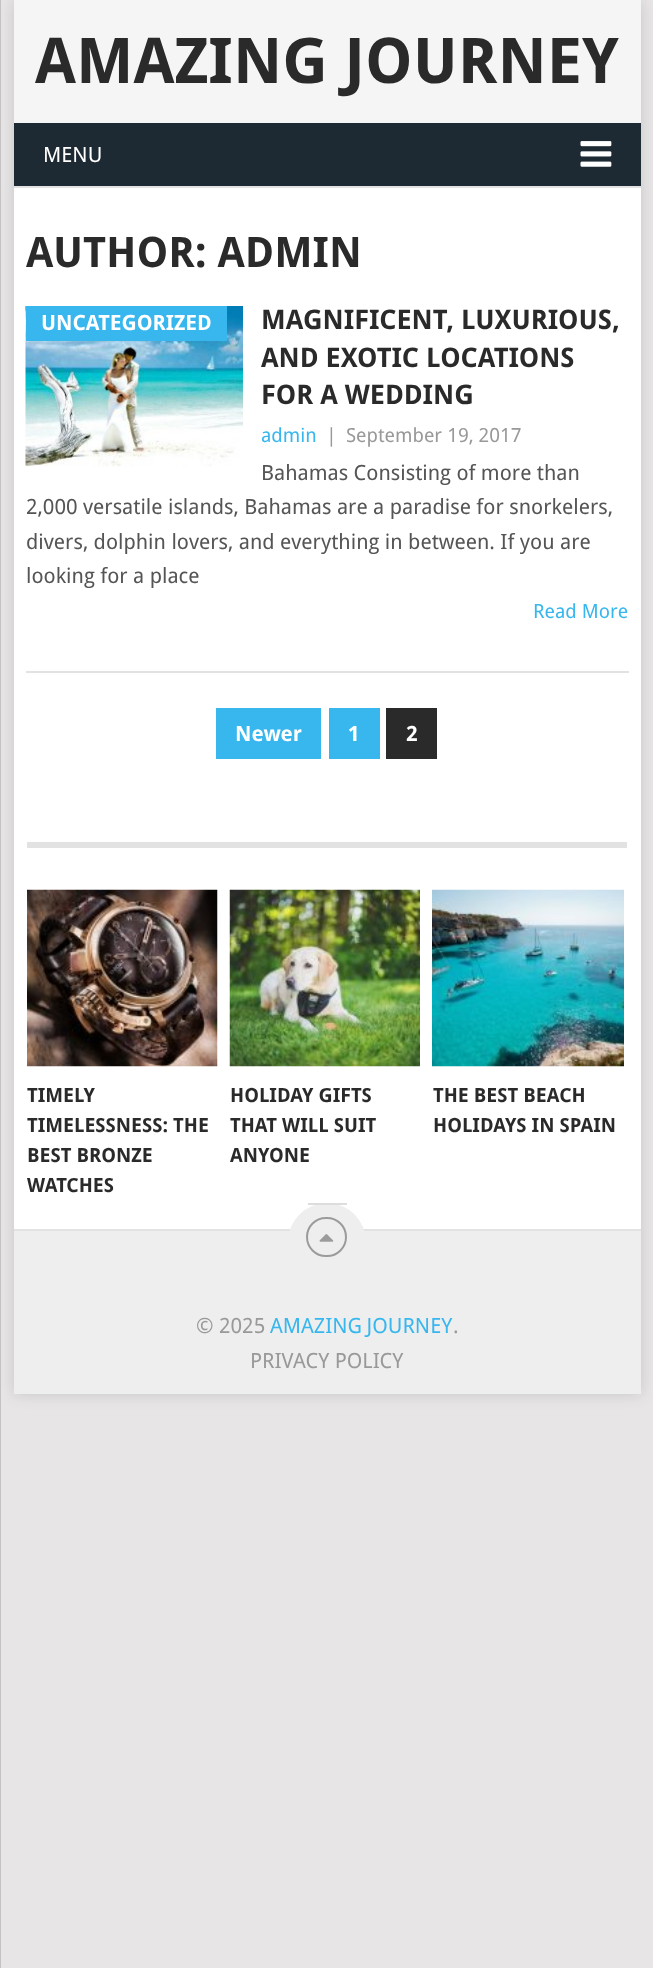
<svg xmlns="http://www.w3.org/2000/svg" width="653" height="1968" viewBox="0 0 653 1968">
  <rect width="100%" height="100%" fill="rgb(231,229,230)"/>
  <rect x="14" y="0" width="627" height="1394" fill="rgba(50,50,50,0.17)" filter="blur(7.5px)"/>
  <rect x="14" y="188" width="627" height="1041" fill="rgb(255,255,255)"/>
  <rect x="14" y="0" width="627" height="123" fill="rgb(245,245,245)"/>
  <rect x="0" y="0" width="1" height="1968" fill="rgb(196,194,195)"/>
  <text x="35" y="83" font-family="Droid Sans" font-size="63" font-weight="bold" fill="rgb(42,42,42)">AMAZING JOURNEY</text>
  <rect x="14" y="123" width="627" height="63" fill="rgb(29,41,51)"/>
  <text x="43" y="162" font-family="Droid Sans" font-size="21" fill="rgb(255,255,255)">MENU</text>
  <image x="580" y="141" width="32" height="26" href="pic1.png"/>
  <rect x="14" y="186" width="627" height="2" fill="rgb(226,226,226)"/>
  <text x="26" y="267" font-family="Droid Sans" font-size="42" font-weight="bold" fill="rgb(42,42,42)">AUTHOR: ADMIN</text>
  <rect x="26" y="671" width="603" height="2" fill="rgb(226,226,226)"/>
  <image x="25" y="306" width="218" height="161" href="pic2.png"/>
  <rect x="26" y="306" width="201" height="35" fill="rgb(56,183,238)"/>
  <text x="41" y="330" font-family="Droid Sans" font-size="21" font-weight="bold" fill="rgb(255,255,255)">UNCATEGORIZED</text>
  <g font-family="Droid Sans" font-size="27" font-weight="bold" fill="rgb(42,42,42)">
    <text>
      <tspan x="261" y="329">MAGNIFICENT, LUXURIOUS,</tspan>
      <tspan x="261" y="367">AND EXOTIC LOCATIONS</tspan>
      <tspan x="261" y="404">FOR A WEDDING</tspan>
    </text>
  </g>
  <text x="261" y="442" font-family="Droid Sans" font-size="19.5" fill="rgb(56,183,238)">admin</text>
  <g font-family="Droid Sans" font-size="19.5" fill="rgb(153,153,153)">
    <text x="326" y="442">|</text>
    <text x="346" y="442">September 19, 2017</text>
  </g>
  <g font-family="Droid Sans" font-size="21" fill="rgb(85,85,85)">
    <text x="261" y="480">Bahamas Consisting of more than</text>
    <text>
      <tspan x="26" y="514">2,000 versatile islands, Bahamas are a paradise for snorkelers,</tspan>
      <tspan x="26" y="549">divers, dolphin lovers, and everything in between. If you are</tspan>
      <tspan x="26" y="583">looking for a place</tspan>
    </text>
  </g>
  <text x="533" y="618" font-family="Droid Sans" font-size="19.5" fill="rgb(56,183,238)">Read More</text>
  <rect x="216" y="708" width="105" height="51" fill="rgb(56,183,238)"/>
  <text x="235" y="741" font-family="Droid Sans" font-size="21" font-weight="bold" fill="rgb(255,255,255)">Newer</text>
  <rect x="329" y="708" width="51" height="51" fill="rgb(56,183,238)"/>
  <text x="348" y="741" font-family="Droid Sans" font-size="21" font-weight="bold" fill="rgb(255,255,255)">1</text>
  <rect x="386" y="708" width="51" height="51" fill="rgb(42,42,42)"/>
  <text x="406" y="741" font-family="Droid Sans" font-size="21" font-weight="bold" fill="rgb(255,255,255)">2</text>
  <rect x="27" y="842" width="600" height="6" fill="rgb(226,226,226)"/>
  <image x="27" y="889" width="191" height="178" href="pic3.png"/>
  <g font-family="Droid Sans" font-size="19.5" font-weight="bold" fill="rgb(42,42,42)">
    <text>
      <tspan x="27" y="1102">TIMELY</tspan>
      <tspan x="27" y="1132">TIMELESSNESS: THE</tspan>
      <tspan x="27" y="1162">BEST BRONZE</tspan>
      <tspan x="27" y="1192">WATCHES</tspan>
    </text>
  </g>
  <image x="229" y="889" width="191" height="178" href="pic4.png"/>
  <g font-family="Droid Sans" font-size="19.5" font-weight="bold" fill="rgb(42,42,42)">
    <text>
      <tspan x="230" y="1102">HOLIDAY GIFTS</tspan>
      <tspan x="230" y="1132">THAT WILL SUIT</tspan>
      <tspan x="230" y="1162">ANYONE</tspan>
    </text>
  </g>
  <image x="432" y="889" width="192" height="178" href="pic5.png"/>
  <g font-family="Droid Sans" font-size="19.5" font-weight="bold" fill="rgb(42,42,42)">
    <text>
      <tspan x="433" y="1102">THE BEST BEACH</tspan>
      <tspan x="433" y="1132">HOLIDAYS IN SPAIN</tspan>
    </text>
  </g>
  <rect x="14" y="1231" width="627" height="163" fill="rgb(238,238,238)"/>
  <rect x="14" y="1229" width="627" height="2" fill="rgb(226,226,226)"/>
  <circle cx="327" cy="1242" r="39" fill="rgb(238,238,238)"/>
  <rect x="308" y="1203" width="39" height="2" fill="rgb(221,221,221)"/>
  <rect x="307" y="1218" width="39" height="38" rx="19" fill="none" stroke="rgb(155,155,155)" stroke-width="2"/>
  <image x="319" y="1234" width="15" height="8" href="pic6.png"/>
  <text x="196" y="1333" font-family="Droid Sans" font-size="21" fill="rgb(153,153,153)">© 2025</text>
  <text x="270" y="1333" word-spacing="-1" font-family="Droid Sans" font-size="21" fill="rgb(56,183,238)">AMAZING JOURNEY</text>
  <g font-family="Droid Sans" font-size="21" fill="rgb(153,153,153)">
    <text x="453" y="1333">.</text>
    <text x="250" y="1368">PRIVACY POLICY</text>
  </g>
</svg>
